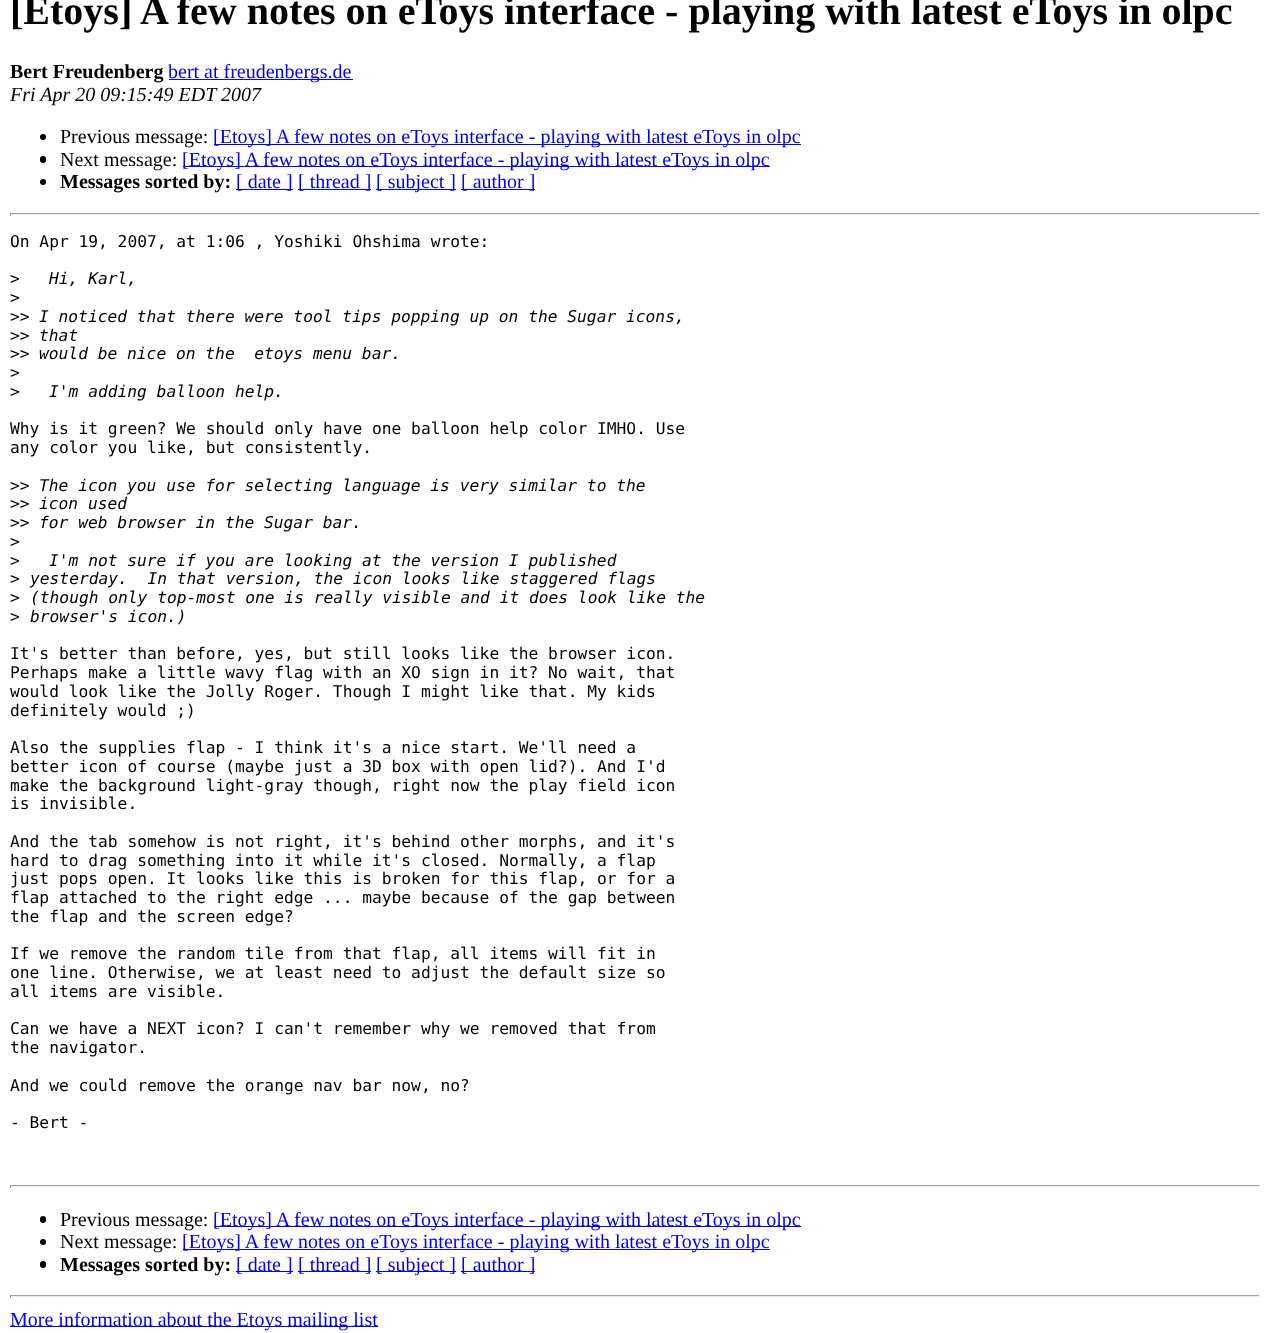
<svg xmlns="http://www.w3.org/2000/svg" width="1269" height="1333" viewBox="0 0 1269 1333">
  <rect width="100%" height="100%" fill="rgb(255,255,255)"/>
  <text x="10" y="24" font-family="Liberation Serif" font-size="40" font-weight="bold" fill="rgb(0,0,0)">[Etoys] A few notes on eToys interface - playing with latest eToys in olpc</text>
  <text x="10" y="78" font-family="Liberation Serif" font-size="20" font-weight="bold" fill="rgb(0,0,0)">Bert Freudenberg</text>
  <rect x="169" y="79" width="184" height="1" fill="rgb(0,0,238)"/>
  <text x="168" y="78" font-family="Liberation Serif" font-size="20" fill="rgb(0,0,238)">bert at freudenbergs.de</text>
  <text x="10" y="101" font-family="Liberation Serif" font-size="20" font-style="italic" fill="rgb(0,0,0)">Fri Apr 20 09:15:49 EDT 2007</text>
  <circle cx="43" cy="137" r="3" fill="rgb(0,0,0)"/>
  <text x="60" y="143" font-family="Liberation Serif" font-size="20" fill="rgb(0,0,0)">Previous message:</text>
  <rect x="214" y="144" width="587" height="1" fill="rgb(0,0,238)"/>
  <text x="213" y="143" font-family="Liberation Serif" font-size="20" fill="rgb(0,0,238)">[Etoys] A few notes on eToys interface - playing with latest eToys in olpc</text>
  <rect x="40" y="156" width="6" height="7" rx="3" fill="rgb(0,0,0)"/>
  <text x="60" y="166" font-family="Liberation Serif" font-size="20" fill="rgb(0,0,0)">Next message:</text>
  <rect x="183" y="166" width="587" height="1" fill="rgb(0,0,238)"/>
  <text x="182" y="166" font-family="Liberation Serif" font-size="20" fill="rgb(0,0,238)">[Etoys] A few notes on eToys interface - playing with latest eToys in olpc</text>
  <circle cx="43" cy="182" r="3" fill="rgb(0,0,0)"/>
  <text x="60" y="188" font-family="Liberation Serif" font-size="20" font-weight="bold" fill="rgb(0,0,0)">Messages sorted by:</text>
  <rect x="236" y="189" width="57" height="1" fill="rgb(0,0,238)"/>
  <text x="236" y="188" font-family="Liberation Serif" font-size="20" fill="rgb(0,0,238)">[ date ]</text>
  <rect x="298" y="189" width="73" height="1" fill="rgb(0,0,238)"/>
  <text x="298" y="188" font-family="Liberation Serif" font-size="20" fill="rgb(0,0,238)">[ thread ]</text>
  <rect x="376" y="189" width="80" height="1" fill="rgb(0,0,238)"/>
  <text x="376" y="188" font-family="Liberation Serif" font-size="20" fill="rgb(0,0,238)">[ subject ]</text>
  <rect x="461" y="189" width="74" height="1" fill="rgb(0,0,238)"/>
  <text x="461" y="188" font-family="Liberation Serif" font-size="20" fill="rgb(0,0,238)">[ author ]</text>
  <rect x="10" y="213" width="1250" height="1" fill="rgb(159,159,159)"/>
  <rect x="1259" y="213" width="1" height="3" fill="rgb(238,238,238)"/>
  <rect x="10" y="214" width="1250" height="1" fill="rgb(238,238,238)"/>
  <rect x="10" y="213" width="1" height="3" fill="rgb(159,159,159)"/>
  <g font-family="DejaVu Sans Mono" font-size="16.25" fill="rgb(0,0,0)">
    <text x="10" y="247">On Apr 19, 2007, at 1:06 , Yoshiki Ohshima wrote:</text>
    <text x="10" y="284">&gt;</text>
  </g>
  <text x="49" y="284" font-family="DejaVu Sans Mono" font-size="16.25" font-style="italic" fill="rgb(0,0,0)">Hi, Karl,</text>
  <g font-family="DejaVu Sans Mono" font-size="16.25" fill="rgb(0,0,0)">
    <text>
      <tspan x="10" y="303">&gt;</tspan>
      <tspan x="10" y="322">&gt;&gt;</tspan>
    </text>
  </g>
  <text x="39" y="322" font-family="DejaVu Sans Mono" font-size="16.25" font-style="italic" fill="rgb(0,0,0)">I noticed that there were tool tips popping up on the Sugar icons,</text>
  <text x="10" y="341" font-family="DejaVu Sans Mono" font-size="16.25" fill="rgb(0,0,0)">&gt;&gt;</text>
  <text x="39" y="341" font-family="DejaVu Sans Mono" font-size="16.25" font-style="italic" fill="rgb(0,0,0)">that</text>
  <text x="10" y="359" font-family="DejaVu Sans Mono" font-size="16.25" fill="rgb(0,0,0)">&gt;&gt;</text>
  <text x="39" y="359" font-family="DejaVu Sans Mono" font-size="16.25" font-style="italic" fill="rgb(0,0,0)" xml:space="preserve">would be nice on the  etoys menu bar.</text>
  <g font-family="DejaVu Sans Mono" font-size="16.25" fill="rgb(0,0,0)">
    <text>
      <tspan x="10" y="378">&gt;</tspan>
      <tspan x="10" y="397">&gt;</tspan>
    </text>
  </g>
  <text x="49" y="397" font-family="DejaVu Sans Mono" font-size="16.25" font-style="italic" fill="rgb(0,0,0)">I'm adding balloon help.</text>
  <g font-family="DejaVu Sans Mono" font-size="16.25" fill="rgb(0,0,0)">
    <text>
      <tspan x="10" y="434">Why is it green? We should only have one balloon help color IMHO. Use</tspan>
      <tspan x="10" y="453">any color you like, but consistently.</tspan>
    </text>
    <text x="10" y="491">&gt;&gt;</text>
  </g>
  <text x="39" y="491" font-family="DejaVu Sans Mono" font-size="16.25" font-style="italic" fill="rgb(0,0,0)">The icon you use for selecting language is very similar to the</text>
  <text x="10" y="509" font-family="DejaVu Sans Mono" font-size="16.25" fill="rgb(0,0,0)">&gt;&gt;</text>
  <text x="39" y="509" font-family="DejaVu Sans Mono" font-size="16.25" font-style="italic" fill="rgb(0,0,0)">icon used</text>
  <text x="10" y="528" font-family="DejaVu Sans Mono" font-size="16.25" fill="rgb(0,0,0)">&gt;&gt;</text>
  <text x="39" y="528" font-family="DejaVu Sans Mono" font-size="16.25" font-style="italic" fill="rgb(0,0,0)">for web browser in the Sugar bar.</text>
  <g font-family="DejaVu Sans Mono" font-size="16.25" fill="rgb(0,0,0)">
    <text>
      <tspan x="10" y="547">&gt;</tspan>
      <tspan x="10" y="566">&gt;</tspan>
    </text>
  </g>
  <text x="49" y="566" font-family="DejaVu Sans Mono" font-size="16.25" font-style="italic" fill="rgb(0,0,0)">I'm not sure if you are looking at the version I published</text>
  <text x="10" y="584" font-family="DejaVu Sans Mono" font-size="16.25" fill="rgb(0,0,0)">&gt;</text>
  <text x="30" y="584" font-family="DejaVu Sans Mono" font-size="16.25" font-style="italic" fill="rgb(0,0,0)" xml:space="preserve">yesterday.  In that version, the icon looks like staggered flags</text>
  <text x="10" y="603" font-family="DejaVu Sans Mono" font-size="16.25" fill="rgb(0,0,0)">&gt;</text>
  <text x="30" y="603" font-family="DejaVu Sans Mono" font-size="16.25" font-style="italic" fill="rgb(0,0,0)">(though only top-most one is really visible and it does look like the</text>
  <text x="10" y="622" font-family="DejaVu Sans Mono" font-size="16.25" fill="rgb(0,0,0)">&gt;</text>
  <text x="30" y="622" font-family="DejaVu Sans Mono" font-size="16.25" font-style="italic" fill="rgb(0,0,0)">browser's icon.)</text>
  <g font-family="DejaVu Sans Mono" font-size="16.25" fill="rgb(0,0,0)">
    <text>
      <tspan x="10" y="659">It's better than before, yes, but still looks like the browser icon.</tspan>
      <tspan x="10" y="678">Perhaps make a little wavy flag with an XO sign in it? No wait, that</tspan>
      <tspan x="10" y="697">would look like the Jolly Roger. Though I might like that. My kids</tspan>
      <tspan x="10" y="716">definitely would ;)</tspan>
    </text>
    <text>
      <tspan x="10" y="753">Also the supplies flap - I think it's a nice start. We'll need a</tspan>
      <tspan x="10" y="772">better icon of course (maybe just a 3D box with open lid?). And I'd</tspan>
      <tspan x="10" y="791">make the background light-gray though, right now the play field icon</tspan>
      <tspan x="10" y="809">is invisible.</tspan>
    </text>
    <text>
      <tspan x="10" y="847">And the tab somehow is not right, it's behind other morphs, and it's</tspan>
      <tspan x="10" y="866">hard to drag something into it while it's closed. Normally, a flap</tspan>
      <tspan x="10" y="884">just pops open. It looks like this is broken for this flap, or for a</tspan>
      <tspan x="10" y="903">flap attached to the right edge ... maybe because of the gap between</tspan>
      <tspan x="10" y="922">the flap and the screen edge?</tspan>
    </text>
    <text>
      <tspan x="10" y="959">If we remove the random tile from that flap, all items will fit in</tspan>
      <tspan x="10" y="978">one line. Otherwise, we at least need to adjust the default size so</tspan>
      <tspan x="10" y="997">all items are visible.</tspan>
    </text>
    <text>
      <tspan x="10" y="1034">Can we have a NEXT icon? I can't remember why we removed that from</tspan>
      <tspan x="10" y="1053">the navigator.</tspan>
    </text>
    <text x="10" y="1091">And we could remove the orange nav bar now, no?</text>
    <text x="10" y="1128">- Bert -</text>
  </g>
  <rect x="10" y="1185" width="1250" height="1" fill="rgb(159,159,159)"/>
  <rect x="1259" y="1185" width="1" height="3" fill="rgb(238,238,238)"/>
  <rect x="10" y="1186" width="1250" height="1" fill="rgb(238,238,238)"/>
  <rect x="10" y="1185" width="1" height="3" fill="rgb(159,159,159)"/>
  <rect x="40" y="1216" width="6" height="7" rx="3" fill="rgb(0,0,0)"/>
  <text x="60" y="1226" font-family="Liberation Serif" font-size="20" fill="rgb(0,0,0)">Previous message:</text>
  <rect x="214" y="1226" width="587" height="1" fill="rgb(0,0,238)"/>
  <text x="213" y="1226" font-family="Liberation Serif" font-size="20" fill="rgb(0,0,238)">[Etoys] A few notes on eToys interface - playing with latest eToys in olpc</text>
  <circle cx="43" cy="1242" r="3" fill="rgb(0,0,0)"/>
  <text x="60" y="1248" font-family="Liberation Serif" font-size="20" fill="rgb(0,0,0)">Next message:</text>
  <rect x="183" y="1249" width="587" height="1" fill="rgb(0,0,238)"/>
  <text x="182" y="1248" font-family="Liberation Serif" font-size="20" fill="rgb(0,0,238)">[Etoys] A few notes on eToys interface - playing with latest eToys in olpc</text>
  <rect x="40" y="1261" width="6" height="7" rx="3" fill="rgb(0,0,0)"/>
  <text x="60" y="1271" font-family="Liberation Serif" font-size="20" font-weight="bold" fill="rgb(0,0,0)">Messages sorted by:</text>
  <rect x="236" y="1271" width="57" height="1" fill="rgb(0,0,238)"/>
  <text x="236" y="1271" font-family="Liberation Serif" font-size="20" fill="rgb(0,0,238)">[ date ]</text>
  <rect x="298" y="1271" width="73" height="1" fill="rgb(0,0,238)"/>
  <text x="298" y="1271" font-family="Liberation Serif" font-size="20" fill="rgb(0,0,238)">[ thread ]</text>
  <rect x="376" y="1271" width="80" height="1" fill="rgb(0,0,238)"/>
  <text x="376" y="1271" font-family="Liberation Serif" font-size="20" fill="rgb(0,0,238)">[ subject ]</text>
  <rect x="461" y="1271" width="74" height="1" fill="rgb(0,0,238)"/>
  <text x="461" y="1271" font-family="Liberation Serif" font-size="20" fill="rgb(0,0,238)">[ author ]</text>
  <rect x="10" y="1295" width="1250" height="1" fill="rgb(159,159,159)"/>
  <rect x="1259" y="1295" width="1" height="3" fill="rgb(238,238,238)"/>
  <rect x="10" y="1296" width="1250" height="1" fill="rgb(238,238,238)"/>
  <rect x="10" y="1295" width="1" height="3" fill="rgb(159,159,159)"/>
  <rect x="10" y="1326" width="368" height="1" fill="rgb(0,0,238)"/>
  <text x="10" y="1326" font-family="Liberation Serif" font-size="20" fill="rgb(0,0,238)">More information about the Etoys mailing list</text>
</svg>
